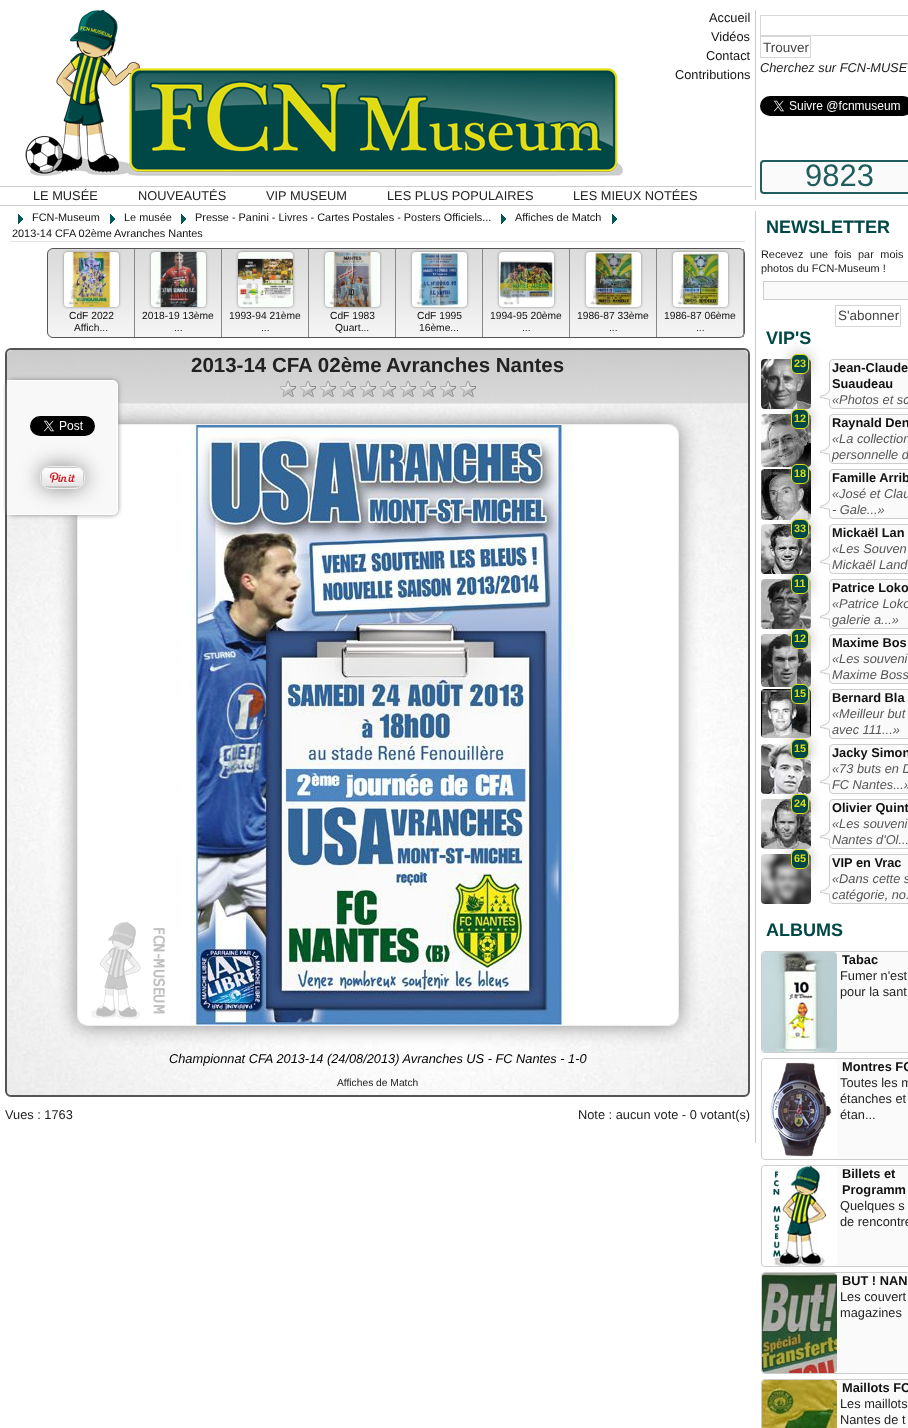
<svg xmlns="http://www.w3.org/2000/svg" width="908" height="1428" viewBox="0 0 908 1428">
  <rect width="100%" height="100%" fill="rgb(255,255,255)"/>
  <image x="25" y="10" width="598" height="166" href="pic1.png"/>
  <rect x="755" y="10" width="1" height="190" fill="rgb(203,203,203)"/>
  <g font-family="Liberation Sans" font-size="12.8" fill="rgb(17,17,17)">
    <text x="709" y="22">Accueil</text>
    <text x="711" y="41">Vidéos</text>
    <text x="706" y="60">Contact</text>
    <text x="675" y="79">Contributions</text>
  </g>
  <rect x="760.5" y="15.5" width="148" height="20" fill="none" stroke="rgb(214,214,214)"/>
  <rect x="760.5" y="36.5" width="50" height="21" fill="none" stroke="rgb(214,214,214)"/>
  <text x="763" y="52" font-family="Liberation Sans" font-size="13.5" fill="rgb(68,68,68)">Trouver</text>
  <text x="760" y="72" font-family="Liberation Sans" font-size="12.8" font-style="italic" fill="rgb(34,34,34)">Cherchez sur FCN-MUSE</text>
  <image x="760" y="96" width="148" height="20" href="pic2.png"/>
  <rect x="762" y="160" width="146" height="34" fill="rgb(250,250,250)"/>
  <rect x="761" y="161" width="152" height="32" rx="3" fill="none" stroke="rgb(32,94,93)" stroke-width="2"/>
  <text x="805" y="186" font-family="Liberation Sans" font-size="31" fill="rgb(32,94,93)">9823</text>
  <rect x="0" y="186" width="752" height="1" fill="rgb(205,205,205)"/>
  <g font-family="Liberation Sans" font-size="12.8" fill="rgb(34,34,34)">
    <text x="33" y="200">LE MUSÉE</text>
    <text x="138" y="200">NOUVEAUTÉS</text>
    <text x="266" y="200">VIP MUSEUM</text>
    <text x="387" y="200">LES PLUS POPULAIRES</text>
    <text x="573" y="200">LES MIEUX NOTÉES</text>
  </g>
  <rect x="0" y="205" width="908" height="1" fill="rgb(203,203,203)"/>
  <rect x="755" y="211" width="1" height="932" fill="rgb(203,203,203)"/>
  <rect x="10" y="241" width="735" height="1" fill="rgb(227,227,227)"/>
  <image x="18" y="214" width="5" height="10" href="pic3.png"/>
  <text x="32" y="221" font-family="Liberation Sans" font-size="10.9" fill="rgb(17,17,17)">FCN-Museum</text>
  <image x="110" y="214" width="5" height="10" href="pic3.png"/>
  <text x="124" y="221" font-family="Liberation Sans" font-size="10.9" fill="rgb(17,17,17)">Le musée</text>
  <image x="181" y="214" width="5" height="10" href="pic3.png"/>
  <text x="195" y="221" font-family="Liberation Sans" font-size="10.9" fill="rgb(17,17,17)">Presse - Panini - Livres - Cartes Postales - Posters Officiels...</text>
  <image x="501" y="214" width="5" height="10" href="pic3.png"/>
  <text x="515" y="221" font-family="Liberation Sans" font-size="10.9" fill="rgb(17,17,17)">Affiches de Match</text>
  <image x="612" y="214" width="5" height="10" href="pic3.png"/>
  <g font-family="Liberation Sans" font-size="10.9" fill="rgb(17,17,17)">
    <text x="12" y="237">2013-14 CFA 02ème</text>
    <text x="114" y="237">Avranches Nantes</text>
  </g>
  <image x="47" y="249" width="698" height="89" href="pic4.png"/>
  <rect x="47.5" y="248.5" width="697" height="89" rx="5.5" fill="none" stroke="rgb(85,85,85)"/>
  <rect x="134" y="249" width="1" height="88" fill="rgb(136,136,136)"/>
  <rect x="64" y="252" width="55" height="55" rx="4" fill="rgb(136,136,136)" filter="blur(1.5px)"/>
  <image x="64" y="252" width="55" height="55" href="pic5.png"/>
  <g font-family="Liberation Sans" font-size="10.25" fill="rgb(17,17,17)">
    <text x="69" y="319">CdF 2022</text>
    <text x="74" y="331">Affich...</text>
  </g>
  <rect x="221" y="249" width="1" height="88" fill="rgb(136,136,136)"/>
  <rect x="151" y="252" width="55" height="55" rx="4" fill="rgb(136,136,136)" filter="blur(1.5px)"/>
  <image x="151" y="252" width="55" height="55" href="pic6.png"/>
  <g font-family="Liberation Sans" font-size="10.25" fill="rgb(17,17,17)">
    <text x="142" y="319">2018-19 13ème</text>
    <text x="174" y="331">...</text>
  </g>
  <rect x="308" y="249" width="1" height="88" fill="rgb(136,136,136)"/>
  <rect x="238" y="252" width="55" height="55" rx="4" fill="rgb(136,136,136)" filter="blur(1.5px)"/>
  <image x="238" y="252" width="55" height="55" href="pic7.png"/>
  <g font-family="Liberation Sans" font-size="10.25" fill="rgb(17,17,17)">
    <text x="229" y="319">1993-94 21ème</text>
    <text x="261" y="331">...</text>
  </g>
  <rect x="395" y="249" width="1" height="88" fill="rgb(136,136,136)"/>
  <rect x="325" y="252" width="55" height="55" rx="4" fill="rgb(136,136,136)" filter="blur(1.5px)"/>
  <image x="325" y="252" width="55" height="55" href="pic8.png"/>
  <g font-family="Liberation Sans" font-size="10.25" fill="rgb(17,17,17)">
    <text x="330" y="319">CdF 1983</text>
    <text x="335" y="331">Quart...</text>
  </g>
  <rect x="482" y="249" width="1" height="88" fill="rgb(136,136,136)"/>
  <rect x="412" y="252" width="55" height="55" rx="4" fill="rgb(136,136,136)" filter="blur(1.5px)"/>
  <image x="412" y="252" width="55" height="55" href="pic9.png"/>
  <g font-family="Liberation Sans" font-size="10.25" fill="rgb(17,17,17)">
    <text x="417" y="319">CdF 1995</text>
    <text x="419" y="331">16ème...</text>
  </g>
  <rect x="569" y="249" width="1" height="88" fill="rgb(136,136,136)"/>
  <rect x="499" y="252" width="55" height="55" rx="4" fill="rgb(136,136,136)" filter="blur(1.5px)"/>
  <image x="499" y="252" width="55" height="55" href="pic10.png"/>
  <g font-family="Liberation Sans" font-size="10.25" fill="rgb(17,17,17)">
    <text x="490" y="319">1994-95 20ème</text>
    <text x="522" y="331">...</text>
  </g>
  <rect x="656" y="249" width="1" height="88" fill="rgb(136,136,136)"/>
  <rect x="586" y="252" width="55" height="55" rx="4" fill="rgb(136,136,136)" filter="blur(1.5px)"/>
  <image x="586" y="252" width="55" height="55" href="pic11.png"/>
  <g font-family="Liberation Sans" font-size="10.25" fill="rgb(17,17,17)">
    <text x="577" y="319">1986-87 33ème</text>
    <text x="609" y="331">...</text>
  </g>
  <rect x="743" y="249" width="1" height="88" fill="rgb(136,136,136)"/>
  <rect x="673" y="252" width="55" height="55" rx="4" fill="rgb(136,136,136)" filter="blur(1.5px)"/>
  <image x="673" y="252" width="55" height="55" href="pic12.png"/>
  <g font-family="Liberation Sans" font-size="10.25" fill="rgb(17,17,17)">
    <text x="664" y="319">1986-87 06ème</text>
    <text x="696" y="331">...</text>
  </g>
  <image x="5" y="348" width="745" height="749" href="pic13.png"/>
  <rect x="6" y="349" width="743" height="747" rx="5" fill="none" stroke="rgb(85,85,85)" stroke-width="2"/>
  <image x="7" y="350" width="741" height="54" href="pic14.png"/>
  <g font-family="Liberation Sans" font-size="20.5" font-weight="bold" fill="rgb(34,34,34)">
    <text x="191" y="372">2013-14 CFA 02ème</text>
    <text x="386" y="372">Avranches Nantes</text>
  </g>
  <image x="280" y="381" width="16" height="16" href="pic15.png"/>
  <image x="300" y="381" width="16" height="16" href="pic16.png"/>
  <image x="320" y="381" width="16" height="16" href="pic17.png"/>
  <image x="340" y="381" width="16" height="16" href="pic18.png"/>
  <image x="360" y="381" width="16" height="16" href="pic19.png"/>
  <image x="380" y="381" width="16" height="16" href="pic20.png"/>
  <image x="400" y="381" width="16" height="16" href="pic21.png"/>
  <image x="420" y="381" width="16" height="16" href="pic22.png"/>
  <image x="440" y="381" width="16" height="16" href="pic23.png"/>
  <image x="460" y="381" width="16" height="16" href="pic24.png"/>
  <rect x="77" y="424" width="602" height="602" rx="10" fill="rgb(136,136,136)" filter="blur(10px)"/>
  <rect x="77.5" y="424.5" width="601" height="601" rx="9.5" fill="none" stroke="rgb(238,238,238)"/>
  <image x="78" y="425" width="600" height="600" href="pic27.png"/>
  <rect x="7" y="380" width="111" height="135" rx="6" fill="rgb(136,136,136)" filter="blur(2.5px)"/>
  <path d="M7 380H112C115.5 380 118 382.5 118 386V509C118 512.5 115.5 515 112 515H7Z" fill="rgb(248,248,248)"/>
  <path d="M7 380H112C115 380 118 383 118 386V509C118 512 115 515 112 515H7ZM7 381H112C115 381 117 383 117 386V509C117 512 115 514 112 514H7Z" fill="rgb(255,255,255)" fill-rule="evenodd"/>
  <image x="30" y="416" width="65" height="20" href="pic25.png"/>
  <rect x="40" y="466" width="45" height="23" rx="10" fill="rgb(136,136,136)" filter="blur(10px)"/>
  <rect x="40.5" y="466.5" width="44" height="22" rx="9.5" fill="none" stroke="rgb(238,238,238)"/>
  <image x="41" y="467" width="43" height="20" href="pic26.png"/>
  <text x="169" y="1063" font-family="Liberation Sans" font-size="12.8" font-style="italic" fill="rgb(0,0,0)">Championnat CFA 2013-14 (24/08/2013) Avranches US - FC Nantes - 1-0</text>
  <text x="337" y="1086" font-family="Liberation Sans" font-size="10.25" fill="rgb(34,34,34)">Affiches de Match</text>
  <g font-family="Liberation Sans" font-size="12.8" fill="rgb(34,34,34)">
    <text x="5" y="1119">Vues : 1763</text>
    <text x="578" y="1119">Note : aucun vote - 0 votant(s)</text>
  </g>
  <text x="766" y="233" font-family="Liberation Sans" font-size="18" font-weight="bold" fill="rgb(0,72,71)">NEWSLETTER</text>
  <g font-family="Liberation Sans" font-size="10.9" fill="rgb(34,34,34)">
    <text>
      <tspan x="761" y="258" word-spacing="3.5">Recevez une fois par mois</tspan>
      <tspan x="761" y="272">photos du FCN-Museum !</tspan>
    </text>
  </g>
  <rect x="763.5" y="281.5" width="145" height="18" fill="rgb(250,250,250)" stroke="rgb(205,205,205)"/>
  <rect x="835.5" y="305.5" width="65" height="21" fill="none" stroke="rgb(214,214,214)"/>
  <text x="838" y="320" font-family="Liberation Sans" font-size="13.5" fill="rgb(68,68,68)">S'abonner</text>
  <text x="766" y="344" font-family="Liberation Sans" font-size="18" font-weight="bold" fill="rgb(0,72,71)">VIP'S</text>
  <image x="761" y="359" width="50" height="50" href="pic28.png"/>
  <rect x="791" y="354" width="18" height="20" rx="6" fill="rgb(170,170,170)" filter="blur(7px)"/>
  <rect x="791.5" y="354.5" width="17" height="19" rx="5.5" fill="rgb(0,72,71)" stroke="rgb(224,219,20)"/>
  <text x="794" y="367" font-family="Liberation Sans" font-size="10.9" font-weight="bold" fill="rgb(224,219,20)">23</text>
  <rect x="829.5" y="359.5" width="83" height="49" rx="3.5" fill="rgb(250,250,250)" stroke="rgb(205,205,205)"/>
  <g font-family="Liberation Sans" font-size="12.8" font-weight="bold" fill="rgb(17,17,17)">
    <text>
      <tspan x="832" y="372">Jean-Claude</tspan>
      <tspan x="832" y="388">Suaudeau</tspan>
    </text>
  </g>
  <image x="820" y="390" width="10" height="10" href="pic29.png"/>
  <text x="832" y="404" font-family="Liberation Sans" font-size="12.8" font-style="italic" fill="rgb(85,85,85)">«Photos et sc</text>
  <image x="761" y="414" width="50" height="53" href="pic30.png"/>
  <rect x="791" y="409" width="18" height="20" rx="6" fill="rgb(170,170,170)" filter="blur(7px)"/>
  <rect x="791.5" y="409.5" width="17" height="19" rx="5.5" fill="rgb(0,72,71)" stroke="rgb(224,219,20)"/>
  <text x="794" y="422" font-family="Liberation Sans" font-size="10.9" font-weight="bold" fill="rgb(224,219,20)">12</text>
  <rect x="829.5" y="414.5" width="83" height="49" rx="3.5" fill="rgb(250,250,250)" stroke="rgb(205,205,205)"/>
  <text x="832" y="427" font-family="Liberation Sans" font-size="12.8" font-weight="bold" fill="rgb(17,17,17)">Raynald Den</text>
  <image x="820" y="445" width="10" height="10" href="pic29.png"/>
  <g font-family="Liberation Sans" font-size="12.8" font-style="italic" fill="rgb(85,85,85)">
    <text>
      <tspan x="832" y="443">«La collection</tspan>
      <tspan x="832" y="459">personnelle d</tspan>
    </text>
  </g>
  <image x="761" y="469" width="50" height="51" href="pic31.png"/>
  <rect x="791" y="464" width="18" height="20" rx="6" fill="rgb(170,170,170)" filter="blur(7px)"/>
  <rect x="791.5" y="464.5" width="17" height="19" rx="5.5" fill="rgb(0,72,71)" stroke="rgb(224,219,20)"/>
  <text x="794" y="477" font-family="Liberation Sans" font-size="10.9" font-weight="bold" fill="rgb(224,219,20)">18</text>
  <rect x="829.5" y="469.5" width="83" height="49" rx="3.5" fill="rgb(250,250,250)" stroke="rgb(205,205,205)"/>
  <text x="832" y="482" font-family="Liberation Sans" font-size="12.8" font-weight="bold" fill="rgb(17,17,17)">Famille Arrib</text>
  <image x="820" y="500" width="10" height="10" href="pic29.png"/>
  <g font-family="Liberation Sans" font-size="12.8" font-style="italic" fill="rgb(85,85,85)">
    <text>
      <tspan x="832" y="498">«José et Clau</tspan>
      <tspan x="832" y="514">- Gale...»</tspan>
    </text>
  </g>
  <image x="761" y="524" width="50" height="50" href="pic32.png"/>
  <rect x="791" y="519" width="18" height="20" rx="6" fill="rgb(170,170,170)" filter="blur(7px)"/>
  <rect x="791.5" y="519.5" width="17" height="19" rx="5.5" fill="rgb(0,72,71)" stroke="rgb(224,219,20)"/>
  <text x="794" y="532" font-family="Liberation Sans" font-size="10.9" font-weight="bold" fill="rgb(224,219,20)">33</text>
  <rect x="829.5" y="524.5" width="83" height="49" rx="3.5" fill="rgb(250,250,250)" stroke="rgb(205,205,205)"/>
  <text x="832" y="537" font-family="Liberation Sans" font-size="12.8" font-weight="bold" fill="rgb(17,17,17)">Mickaël Lan</text>
  <image x="820" y="555" width="10" height="10" href="pic29.png"/>
  <g font-family="Liberation Sans" font-size="12.8" font-style="italic" fill="rgb(85,85,85)">
    <text>
      <tspan x="832" y="553">«Les Souven</tspan>
      <tspan x="832" y="569">Mickaël Land</tspan>
    </text>
  </g>
  <image x="761" y="579" width="50" height="50" href="pic33.png"/>
  <rect x="791" y="574" width="18" height="20" rx="6" fill="rgb(170,170,170)" filter="blur(7px)"/>
  <rect x="791.5" y="574.5" width="17" height="19" rx="5.5" fill="rgb(0,72,71)" stroke="rgb(224,219,20)"/>
  <text x="794" y="587" font-family="Liberation Sans" font-size="10.9" font-weight="bold" fill="rgb(224,219,20)">11</text>
  <rect x="829.5" y="579.5" width="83" height="49" rx="3.5" fill="rgb(250,250,250)" stroke="rgb(205,205,205)"/>
  <text x="832" y="592" font-family="Liberation Sans" font-size="12.8" font-weight="bold" fill="rgb(17,17,17)">Patrice Loko</text>
  <image x="820" y="610" width="10" height="10" href="pic29.png"/>
  <g font-family="Liberation Sans" font-size="12.8" font-style="italic" fill="rgb(85,85,85)">
    <text>
      <tspan x="832" y="608">«Patrice Loko</tspan>
      <tspan x="832" y="624">galerie a...»</tspan>
    </text>
  </g>
  <image x="761" y="634" width="50" height="53" href="pic34.png"/>
  <rect x="791" y="629" width="18" height="20" rx="6" fill="rgb(170,170,170)" filter="blur(7px)"/>
  <rect x="791.5" y="629.5" width="17" height="19" rx="5.5" fill="rgb(0,72,71)" stroke="rgb(224,219,20)"/>
  <text x="794" y="642" font-family="Liberation Sans" font-size="10.9" font-weight="bold" fill="rgb(224,219,20)">12</text>
  <rect x="829.5" y="634.5" width="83" height="49" rx="3.5" fill="rgb(250,250,250)" stroke="rgb(205,205,205)"/>
  <text x="832" y="647" font-family="Liberation Sans" font-size="12.8" font-weight="bold" fill="rgb(17,17,17)">Maxime Bos</text>
  <image x="820" y="665" width="10" height="10" href="pic29.png"/>
  <g font-family="Liberation Sans" font-size="12.8" font-style="italic" fill="rgb(85,85,85)">
    <text>
      <tspan x="832" y="663">«Les souveni</tspan>
      <tspan x="832" y="679">Maxime Boss</tspan>
    </text>
  </g>
  <image x="761" y="689" width="50" height="49" href="pic35.png"/>
  <rect x="791" y="684" width="18" height="20" rx="6" fill="rgb(170,170,170)" filter="blur(7px)"/>
  <rect x="791.5" y="684.5" width="17" height="19" rx="5.5" fill="rgb(0,72,71)" stroke="rgb(224,219,20)"/>
  <text x="794" y="697" font-family="Liberation Sans" font-size="10.9" font-weight="bold" fill="rgb(224,219,20)">15</text>
  <rect x="829.5" y="689.5" width="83" height="49" rx="3.5" fill="rgb(250,250,250)" stroke="rgb(205,205,205)"/>
  <text x="832" y="702" font-family="Liberation Sans" font-size="12.8" font-weight="bold" fill="rgb(17,17,17)">Bernard Bla</text>
  <image x="820" y="720" width="10" height="10" href="pic29.png"/>
  <g font-family="Liberation Sans" font-size="12.8" font-style="italic" fill="rgb(85,85,85)">
    <text>
      <tspan x="832" y="718">«Meilleur but</tspan>
      <tspan x="832" y="734">avec 111...»</tspan>
    </text>
  </g>
  <image x="761" y="744" width="50" height="50" href="pic36.png"/>
  <rect x="791" y="739" width="18" height="20" rx="6" fill="rgb(170,170,170)" filter="blur(7px)"/>
  <rect x="791.5" y="739.5" width="17" height="19" rx="5.5" fill="rgb(0,72,71)" stroke="rgb(224,219,20)"/>
  <text x="794" y="752" font-family="Liberation Sans" font-size="10.9" font-weight="bold" fill="rgb(224,219,20)">15</text>
  <rect x="829.5" y="744.5" width="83" height="49" rx="3.5" fill="rgb(250,250,250)" stroke="rgb(205,205,205)"/>
  <text x="832" y="757" font-family="Liberation Sans" font-size="12.8" font-weight="bold" fill="rgb(17,17,17)">Jacky Simon</text>
  <image x="820" y="775" width="10" height="10" href="pic29.png"/>
  <g font-family="Liberation Sans" font-size="12.8" font-style="italic" fill="rgb(85,85,85)">
    <text>
      <tspan x="832" y="773">«73 buts en D</tspan>
      <tspan x="832" y="789">FC Nantes...»</tspan>
    </text>
  </g>
  <image x="761" y="799" width="50" height="50" href="pic37.png"/>
  <rect x="791" y="794" width="18" height="20" rx="6" fill="rgb(170,170,170)" filter="blur(7px)"/>
  <rect x="791.5" y="794.5" width="17" height="19" rx="5.5" fill="rgb(0,72,71)" stroke="rgb(224,219,20)"/>
  <text x="794" y="807" font-family="Liberation Sans" font-size="10.9" font-weight="bold" fill="rgb(224,219,20)">24</text>
  <rect x="829.5" y="799.5" width="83" height="49" rx="3.5" fill="rgb(250,250,250)" stroke="rgb(205,205,205)"/>
  <text x="832" y="812" font-family="Liberation Sans" font-size="12.8" font-weight="bold" fill="rgb(17,17,17)">Olivier Quint</text>
  <image x="820" y="830" width="10" height="10" href="pic29.png"/>
  <g font-family="Liberation Sans" font-size="12.8" font-style="italic" fill="rgb(85,85,85)">
    <text>
      <tspan x="832" y="828">«Les souveni</tspan>
      <tspan x="832" y="844">Nantes d'Ol...</tspan>
    </text>
  </g>
  <image x="761" y="854" width="50" height="50" href="pic38.png"/>
  <rect x="791" y="849" width="18" height="20" rx="6" fill="rgb(170,170,170)" filter="blur(7px)"/>
  <rect x="791.5" y="849.5" width="17" height="19" rx="5.5" fill="rgb(0,72,71)" stroke="rgb(224,219,20)"/>
  <text x="794" y="862" font-family="Liberation Sans" font-size="10.9" font-weight="bold" fill="rgb(224,219,20)">65</text>
  <rect x="829.5" y="854.5" width="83" height="49" rx="3.5" fill="rgb(250,250,250)" stroke="rgb(205,205,205)"/>
  <text x="832" y="867" font-family="Liberation Sans" font-size="12.8" font-weight="bold" fill="rgb(17,17,17)">VIP en Vrac</text>
  <image x="820" y="885" width="10" height="10" href="pic29.png"/>
  <g font-family="Liberation Sans" font-size="12.8" font-style="italic" fill="rgb(85,85,85)">
    <text>
      <tspan x="832" y="883">«Dans cette s</tspan>
      <tspan x="832" y="899">catégorie, no.</tspan>
    </text>
  </g>
  <text x="766" y="936" font-family="Liberation Sans" font-size="18" font-weight="bold" fill="rgb(0,72,71)">ALBUMS</text>
  <rect x="761.5" y="951.5" width="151" height="101" rx="3.5" fill="rgb(250,250,250)" stroke="rgb(205,205,205)"/>
  <image x="762" y="952" width="75" height="100" href="pic39.png"/>
  <text x="842" y="964" font-family="Liberation Sans" font-size="12.8" font-weight="bold" fill="rgb(17,17,17)">Tabac</text>
  <g font-family="Liberation Sans" font-size="12.8" fill="rgb(34,34,34)">
    <text>
      <tspan x="840" y="980">Fumer n'est</tspan>
      <tspan x="840" y="996">pour la sant</tspan>
    </text>
  </g>
  <rect x="761.5" y="1058.5" width="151" height="101" rx="3.5" fill="rgb(250,250,250)" stroke="rgb(205,205,205)"/>
  <image x="762" y="1059" width="75" height="100" href="pic40.png"/>
  <text x="842" y="1071" font-family="Liberation Sans" font-size="12.8" font-weight="bold" fill="rgb(17,17,17)">Montres FC</text>
  <g font-family="Liberation Sans" font-size="12.8" fill="rgb(34,34,34)">
    <text>
      <tspan x="840" y="1087">Toutes les m</tspan>
      <tspan x="840" y="1103">étanches et</tspan>
      <tspan x="840" y="1119">étan...</tspan>
    </text>
  </g>
  <rect x="761.5" y="1165.5" width="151" height="101" rx="3.5" fill="rgb(250,250,250)" stroke="rgb(205,205,205)"/>
  <image x="762" y="1166" width="75" height="100" href="pic41.png"/>
  <g font-family="Liberation Sans" font-size="12.8" font-weight="bold" fill="rgb(17,17,17)">
    <text>
      <tspan x="842" y="1178">Billets et</tspan>
      <tspan x="842" y="1194">Programm</tspan>
    </text>
  </g>
  <g font-family="Liberation Sans" font-size="12.8" fill="rgb(34,34,34)">
    <text>
      <tspan x="840" y="1210">Quelques s</tspan>
      <tspan x="840" y="1226">de rencontre</tspan>
    </text>
  </g>
  <rect x="761.5" y="1272.5" width="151" height="101" rx="3.5" fill="rgb(250,250,250)" stroke="rgb(205,205,205)"/>
  <image x="762" y="1273" width="75" height="100" href="pic42.png"/>
  <text x="842" y="1285" font-family="Liberation Sans" font-size="12.8" font-weight="bold" fill="rgb(17,17,17)">BUT ! NAN</text>
  <g font-family="Liberation Sans" font-size="12.8" fill="rgb(34,34,34)">
    <text>
      <tspan x="840" y="1301">Les couvert</tspan>
      <tspan x="840" y="1317">magazines</tspan>
    </text>
  </g>
  <rect x="761.5" y="1379.5" width="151" height="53" rx="3.5" fill="rgb(250,250,250)" stroke="rgb(205,205,205)"/>
  <image x="762" y="1380" width="75" height="48" href="pic43.png"/>
  <text x="842" y="1392" font-family="Liberation Sans" font-size="12.8" font-weight="bold" fill="rgb(17,17,17)">Maillots FC</text>
  <g font-family="Liberation Sans" font-size="12.8" fill="rgb(34,34,34)">
    <text>
      <tspan x="840" y="1408">Les maillots</tspan>
      <tspan x="840" y="1424">Nantes de t</tspan>
    </text>
  </g>
</svg>
